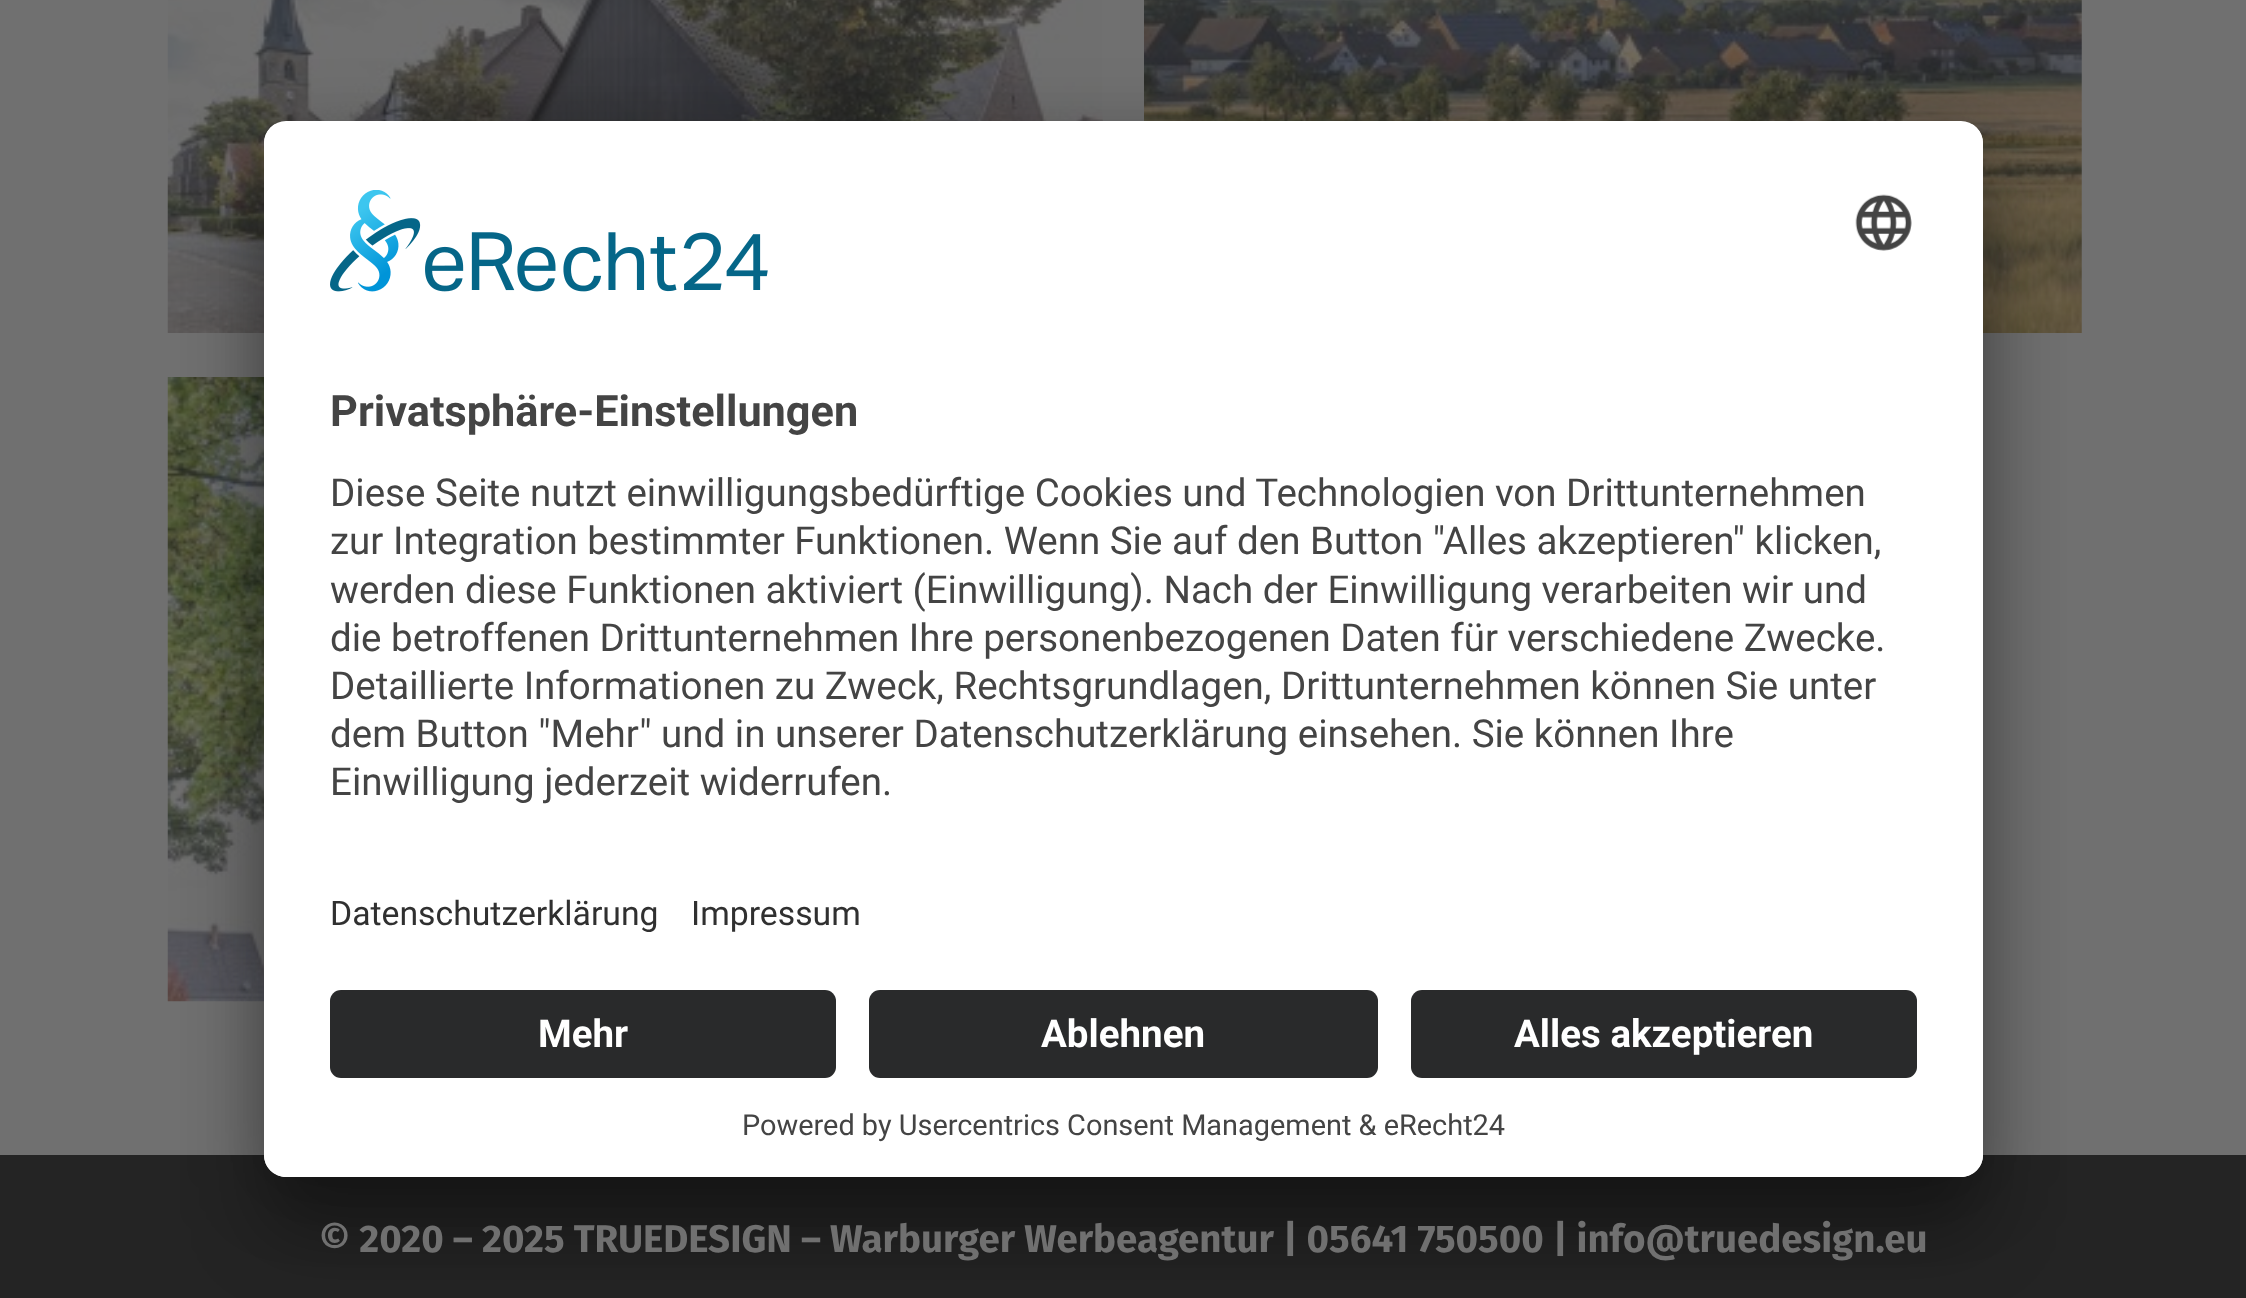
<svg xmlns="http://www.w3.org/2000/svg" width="2246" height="1298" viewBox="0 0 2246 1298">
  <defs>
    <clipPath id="clip1"><rect x="264" y="121" width="1719" height="1056" rx="22"/></clipPath>
    <clipPath id="clip2"><path d="M286 121H1961C1973 121 1983 131 1983 143V968H264V143C264 131 274 121 286 121Z"/></clipPath>
  </defs>
  <rect width="100%" height="100%" fill="rgb(112,112,112)"/>
  <image x="167" y="0" width="936" height="333" href="pic3.png"/>
  <image x="1144" y="0" width="938" height="333" href="pic4.png"/>
  <image x="167" y="377" width="97" height="625" href="pic5.png"/>
  <rect x="0" y="1155" width="2246" height="143" fill="rgb(36,36,36)"/>
  <rect x="264" y="176" width="1719" height="1056" rx="22" fill="rgba(0,0,0,0.3)" filter="blur(38.5px)"/>
  <rect x="264" y="135" width="1719" height="1056" rx="22" fill="rgba(0,0,0,0.22)" filter="blur(36px)"/>
  <rect x="264" y="121" width="1719" height="1056" rx="22" fill="rgb(255,255,255)"/>
  <g clip-path="url(#clip1)">
    <g clip-path="url(#clip2)">
      <rect x="264" y="124" width="1719" height="844" fill="rgb(255,255,255)"/>
    </g>
  </g>
  <image x="330" y="190" width="438" height="102" href="pic1.png"/>
  <image x="1855" y="194" width="57" height="57" href="pic2.png"/>
  <text x="330" y="426" font-family="Roboto" font-size="43.25" font-weight="bold" fill="rgb(68,68,68)">Privatsphäre-Einstellungen</text>
  <g font-family="Roboto" font-size="38.5" fill="rgb(68,68,68)">
    <text>
      <tspan x="330" y="506">Diese Seite nutzt einwilligungsbedürftige Cookies und Technologien von Drittunternehmen</tspan>
      <tspan x="330" y="554">zur Integration bestimmter Funktionen. Wenn Sie auf den Button "Alles akzeptieren" klicken,</tspan>
      <tspan x="330" y="603">werden diese Funktionen aktiviert (Einwilligung). Nach der Einwilligung verarbeiten wir und</tspan>
      <tspan x="330" y="651">die betroffenen Drittunternehmen Ihre personenbezogenen Daten für verschiedene Zwecke.</tspan>
      <tspan x="330" y="699">Detaillierte Informationen zu Zweck, Rechtsgrundlagen, Drittunternehmen können Sie unter</tspan>
      <tspan x="330" y="747">dem Button "Mehr" und in unserer Datenschutzerklärung einsehen. Sie können Ihre</tspan>
      <tspan x="330" y="795">Einwilligung jederzeit widerrufen.</tspan>
    </text>
  </g>
  <g font-family="Roboto" font-size="33.75" fill="rgb(48,48,48)">
    <text x="330" y="925">Datenschutzerklärung</text>
    <text x="691" y="925">Impressum</text>
  </g>
  <path d="M264 968H1983V1155C1983 1167 1973 1177 1961 1177H286C274 1177 264 1167 264 1155Z" fill="rgb(255,255,255)"/>
  <rect x="330" y="990" width="506" height="88" rx="11" fill="rgb(41,42,43)"/>
  <text x="538" y="1047" font-family="Roboto" font-size="38.5" font-weight="bold" fill="rgb(255,255,255)">Mehr</text>
  <rect x="869" y="990" width="509" height="88" rx="11" fill="rgb(41,42,43)"/>
  <text x="1041" y="1047" font-family="Roboto" font-size="38.5" font-weight="bold" fill="rgb(255,255,255)">Ablehnen</text>
  <rect x="1411" y="990" width="506" height="88" rx="11" fill="rgb(41,42,43)"/>
  <text x="1514" y="1047" font-family="Roboto" font-size="38.5" font-weight="bold" fill="rgb(255,255,255)">Alles akzeptieren</text>
  <text x="742" y="1135" font-family="Roboto" font-size="28.9" fill="rgb(68,68,68)">Powered by Usercentrics Consent Management &amp; eRecht24</text>
  <text x="319" y="1252" font-family="Fira Sans" font-size="38.5" font-weight="bold" fill="rgb(112,112,112)">© 2020 – 2025 TRUEDESIGN – Warburger Werbeagentur | 05641 750500 | info@truedesign.eu</text>
</svg>
